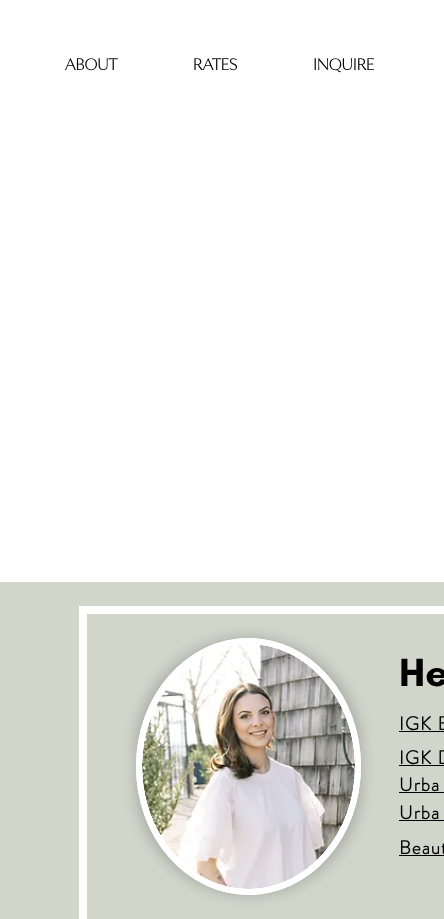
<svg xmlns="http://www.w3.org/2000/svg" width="444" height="919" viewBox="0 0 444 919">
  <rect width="100%" height="100%" fill="rgb(255,255,255)"/>
  <g font-family="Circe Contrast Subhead" font-size="16" font-weight="bold" fill="rgb(0,0,0)">
    <text x="65" y="70">ABOUT</text>
    <text x="193" y="70">RATES</text>
    <text x="313" y="70">INQUIRE</text>
  </g>
  <rect x="0" y="582" width="444" height="337" fill="rgb(209,213,202)"/>
  <rect x="83" y="610" width="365" height="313" fill="none" stroke="rgb(255,255,255)" stroke-width="8"/>
  <rect x="136" y="638" width="225" height="257" rx="112.5" fill="rgba(0,0,0,0.2)" filter="blur(7px)"/>
  <ellipse cx="248.5" cy="766.5" rx="112.5" ry="128.5" fill="rgb(255,255,255)"/>
  <path d="M248.5 641C309 641 358 697 358 766.5C358 836 309 892 248.5 892C188 892 139 836 139 766.5C139 697 188 641 248.5 641Z" fill="none" stroke="rgb(255,255,255)" stroke-width="6"/>
  <image x="142" y="645" width="213" height="244" href="pic1.png"/>
  <text x="399" y="686" font-family="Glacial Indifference" font-size="40" font-weight="bold" fill="rgb(0,0,0)">He</text>
  <text x="399" y="730" font-family="'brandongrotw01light'" font-size="19" font-weight="bold" letter-spacing="1" fill="rgb(0,0,0)">IGK E</text>
  <rect x="399" y="731" width="45" height="1" fill="rgb(0,0,0)"/>
  <text x="399" y="764" font-family="'brandongrotw01light'" font-size="19" font-weight="bold" letter-spacing="1" fill="rgb(0,0,0)">IGK D</text>
  <rect x="399" y="765" width="45" height="1" fill="rgb(0,0,0)"/>
  <text x="399" y="791" font-family="'brandongrotw01light'" font-size="19" font-weight="bold" letter-spacing="1" fill="rgb(0,0,0)">Urba</text>
  <rect x="399" y="792" width="45" height="1" fill="rgb(0,0,0)"/>
  <text x="399" y="819" font-family="'brandongrotw01light'" font-size="19" font-weight="bold" letter-spacing="1" fill="rgb(0,0,0)">Urba</text>
  <rect x="399" y="820" width="45" height="1" fill="rgb(0,0,0)"/>
  <text x="399" y="854" font-family="'brandongrotw01light'" font-size="19" font-weight="bold" letter-spacing="1" fill="rgb(0,0,0)">Beaut</text>
  <rect x="399" y="855" width="45" height="1" fill="rgb(0,0,0)"/>
</svg>
